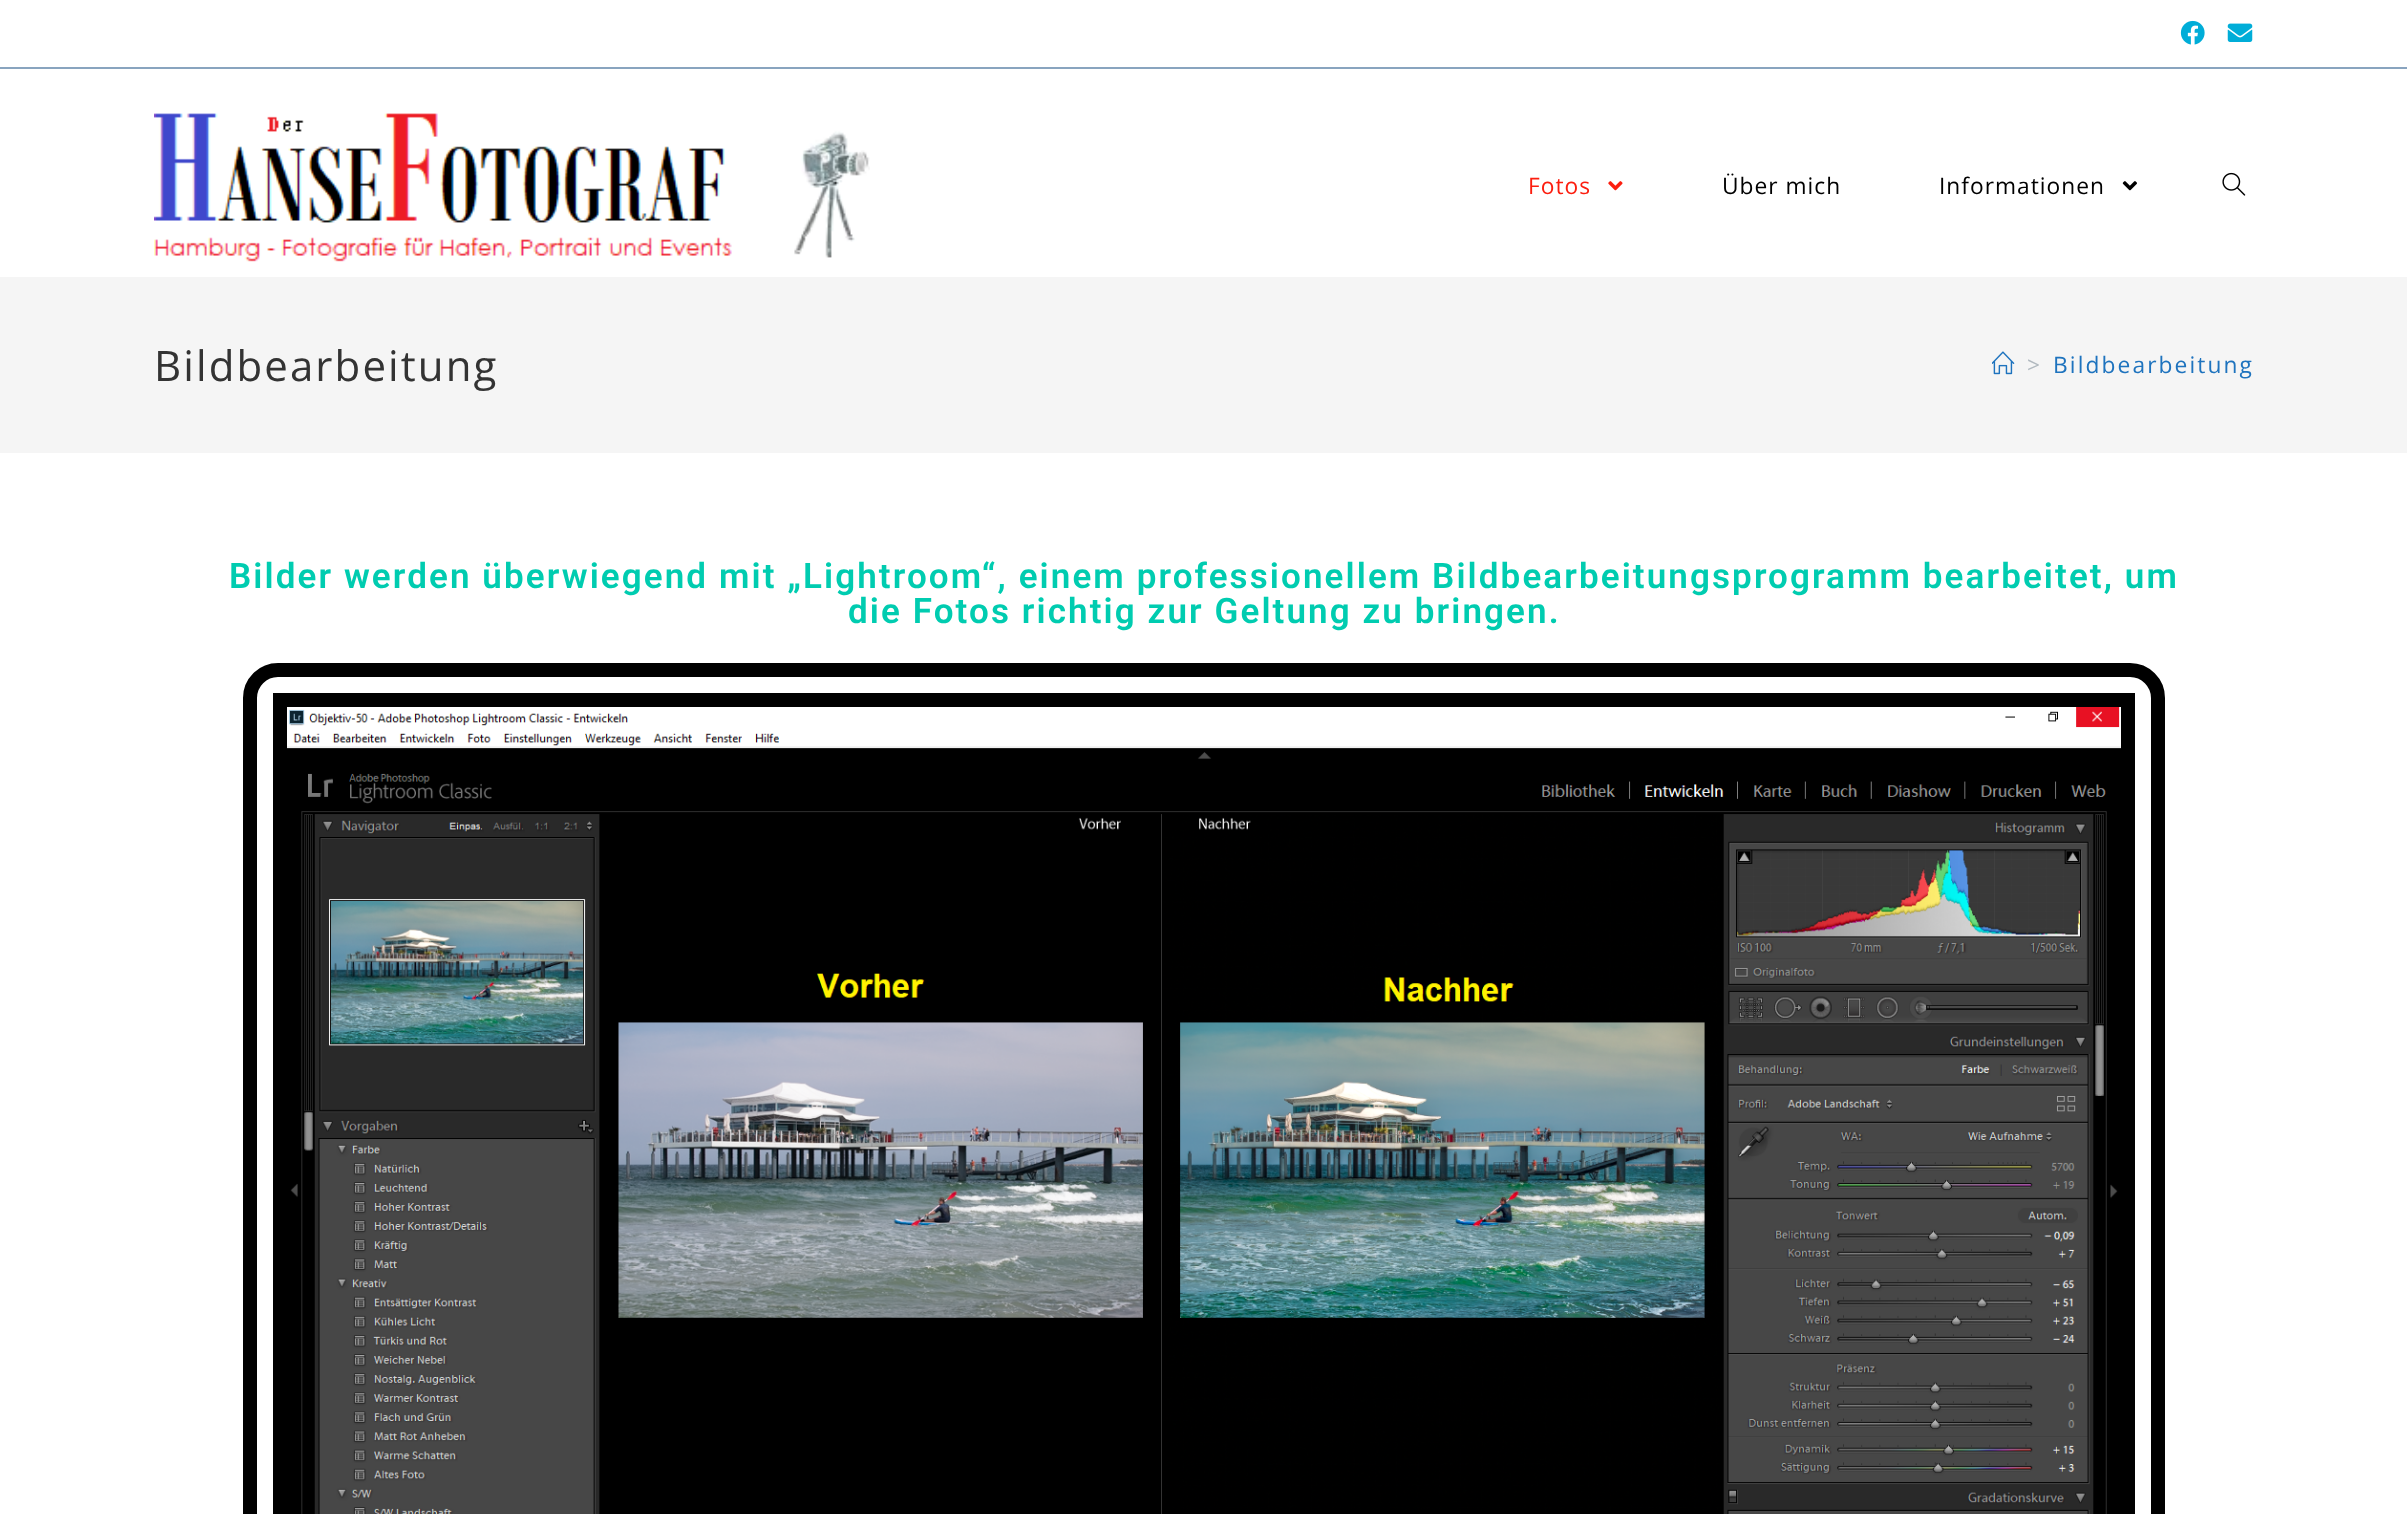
<svg xmlns="http://www.w3.org/2000/svg" width="2407" height="1514" viewBox="0 0 2407 1514">
  <rect width="100%" height="100%" fill="rgb(255,255,255)"/>
  <rect x="0" y="67" width="2407" height="2" fill="rgb(137,164,191)"/>
  <image x="2180" y="20" width="25" height="25" href="pic1.png"/>
  <image x="2227" y="23" width="26" height="19" href="pic2.png"/>
  <image x="154" y="113" width="716" height="149" href="pic3.png"/>
  <text x="1528" y="194" font-family="Open Sans" font-size="22.75" letter-spacing="1" fill="rgb(252,30,15)">Fotos</text>
  <image x="1608" y="181" width="15" height="10" href="pic4.png"/>
  <g font-family="Open Sans" font-size="22.75" letter-spacing="1" fill="rgb(0,0,0)">
    <text x="1722" y="194">Über mich</text>
    <text x="1939" y="194">Informationen</text>
  </g>
  <image x="2122" y="181" width="15" height="10" href="pic5.png"/>
  <image x="2222" y="172" width="24" height="24" href="pic6.png"/>
  <rect x="0" y="277" width="2407" height="176" fill="rgb(245,245,245)"/>
  <text x="154" y="381" font-family="Open Sans" font-size="42" letter-spacing="2.1" fill="rgb(51,51,51)">Bildbearbeitung</text>
  <image x="1992" y="351" width="23" height="24" href="pic7.png"/>
  <text x="2027" y="373" font-family="Open Sans" font-size="22.75" letter-spacing="2.1" fill="rgb(177,185,191)">&gt;</text>
  <text x="2053" y="373" font-family="Open Sans" font-size="22.75" letter-spacing="2.1" fill="rgb(30,115,190)">Bildbearbeitung</text>
  <g font-family="Roboto" font-size="35" font-weight="600" letter-spacing="2.1" fill="rgb(0,204,176)">
    <text x="229" y="588">Bilder werden überwiegend mit „Lightroom“, einem professionellem Bildbearbeitungsprogramm bearbeitet, um</text>
    <text x="848" y="623">die Fotos richtig zur Geltung zu bringen.</text>
  </g>
  <rect x="250" y="670" width="1908" height="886" rx="28" fill="none" stroke="rgb(0,0,0)" stroke-width="14"/>
  <path d="M280 700H2128V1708H280Z" fill="none" stroke="rgb(0,0,0)" stroke-width="14"/>
  <image x="287" y="707" width="1834" height="807" href="pic8.png"/>
</svg>
